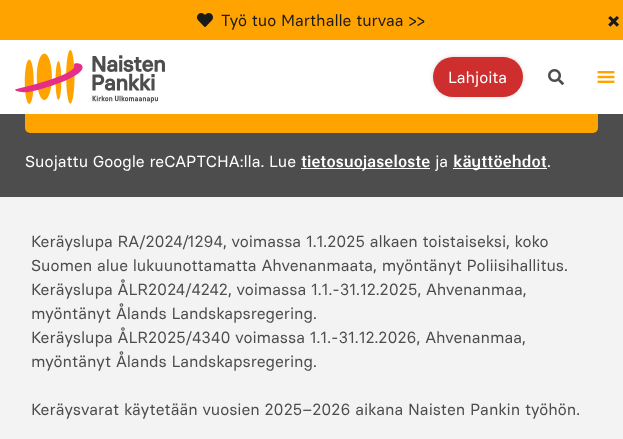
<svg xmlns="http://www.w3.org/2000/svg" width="623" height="439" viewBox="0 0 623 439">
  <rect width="100%" height="100%" fill="rgb(77,77,77)"/>
  <rect x="0" y="0" width="623" height="40" fill="rgb(255,163,0)"/>
  <image x="197" y="13" width="16" height="14" href="pic1.png"/>
  <text x="221" y="26" font-family="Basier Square" font-size="16" fill="rgb(26,26,26)">Työ tuo Marthalle turvaa &gt;&gt;</text>
  <text x="608" y="29" font-family="Basier Square" font-size="24" font-weight="bold" fill="rgb(26,26,26)">×</text>
  <rect x="25" y="73" width="573" height="60" rx="5" fill="rgb(255,163,0)"/>
  <rect x="0" y="40" width="623" height="74" fill="rgb(255,255,255)"/>
  <image x="15" y="50" width="150" height="54" href="pic2.png"/>
  <rect x="433" y="57" width="90" height="40" rx="20" fill="rgba(0,0,0,0.16)" filter="blur(2px)"/>
  <rect x="433" y="57" width="90" height="40" rx="20" fill="rgb(207,46,46)"/>
  <text x="448" y="83" font-family="Basier Square" font-size="16" fill="rgb(255,255,255)">Lahjoita</text>
  <image x="548" y="69" width="16" height="16" href="pic3.png"/>
  <image x="597" y="71" width="18" height="12" href="pic4.png"/>
  <text x="25" y="167" font-family="Basier Square" font-size="16" fill="rgb(255,255,255)">Suojattu Google reCAPTCHA:lla. Lue</text>
  <rect x="301" y="168" width="129" height="1" fill="rgb(255,255,255)"/>
  <text x="301" y="167" font-family="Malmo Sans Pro" font-size="16" font-weight="bold" fill="rgb(255,255,255)">tietosuojaseloste</text>
  <text x="435" y="167" font-family="Basier Square" font-size="16" fill="rgb(255,255,255)">ja</text>
  <rect x="453" y="168" width="94" height="1" fill="rgb(255,255,255)"/>
  <text x="453" y="167" font-family="Malmo Sans Pro" font-size="16" font-weight="bold" fill="rgb(255,255,255)">käyttöehdot</text>
  <text x="547" y="167" font-family="Basier Square" font-size="16" fill="rgb(255,255,255)">.</text>
  <rect x="0" y="197" width="623" height="242" fill="rgb(243,243,243)"/>
  <g font-family="Basier Square" font-size="16" fill="rgb(77,77,77)">
    <text>
      <tspan x="31" y="247">Keräyslupa RA/2024/1294, voimassa 1.1.2025 alkaen toistaiseksi, koko</tspan>
      <tspan x="31" y="271">Suomen alue lukuunottamatta Ahvenanmaata, myöntänyt Poliisihallitus.</tspan>
      <tspan x="31" y="295">Keräyslupa ÅLR2024/4242, voimassa 1.1.-31.12.2025, Ahvenanmaa,</tspan>
      <tspan x="31" y="319">myöntänyt Ålands Landskapsregering.</tspan>
      <tspan x="31" y="343">Keräyslupa ÅLR2025/4340 voimassa 1.1.-31.12.2026, Ahvenanmaa,</tspan>
      <tspan x="31" y="367">myöntänyt Ålands Landskapsregering.</tspan>
    </text>
    <text x="31" y="415">Keräysvarat käytetään vuosien 2025–2026 aikana Naisten Pankin työhön.</text>
  </g>
</svg>
